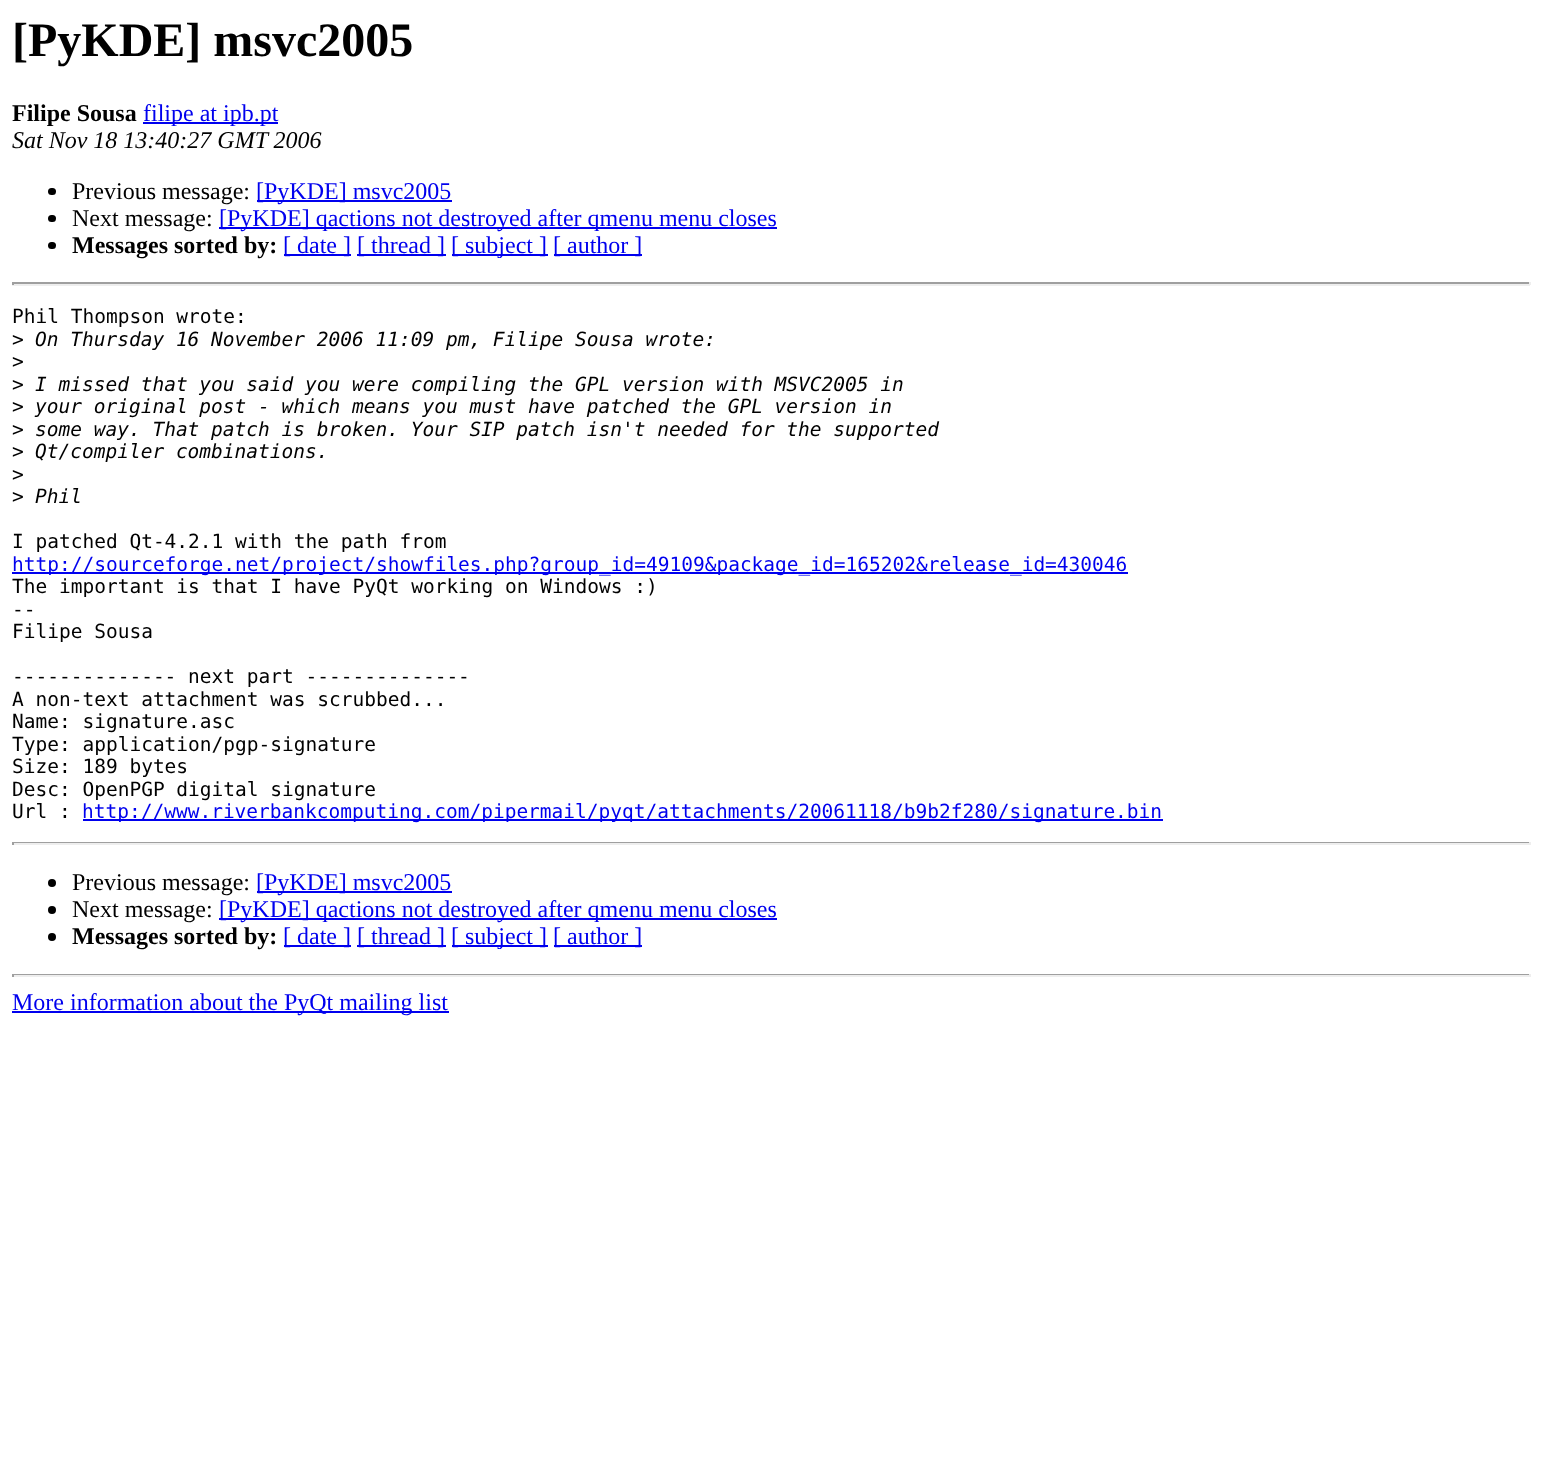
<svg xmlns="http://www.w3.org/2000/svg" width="1541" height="1480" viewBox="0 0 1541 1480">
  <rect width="100%" height="100%" fill="rgb(255,255,255)"/>
  <text x="12" y="56" font-family="Liberation Serif" font-size="48" font-weight="bold" fill="rgb(0,0,0)">[PyKDE] msvc2005</text>
  <text x="12" y="121" font-family="Liberation Serif" font-size="24" font-weight="bold" fill="rgb(0,0,0)">Filipe Sousa</text>
  <rect x="143" y="122" width="135" height="2" fill="rgb(0,0,238)"/>
  <text x="143" y="121" font-family="Liberation Serif" font-size="24" fill="rgb(0,0,238)">filipe at ipb.pt</text>
  <text x="12" y="148" font-family="Liberation Serif" font-size="24" font-style="italic" fill="rgb(0,0,0)">Sat Nov 18 13:40:27 GMT 2006</text>
  <rect x="48" y="188" width="8" height="7" rx="3.5" fill="rgb(0,0,0)"/>
  <text x="72" y="199" font-family="Liberation Serif" font-size="24" fill="rgb(0,0,0)">Previous message:</text>
  <rect x="257" y="200" width="195" height="2" fill="rgb(0,0,238)"/>
  <text x="256" y="199" font-family="Liberation Serif" font-size="24" fill="rgb(0,0,238)">[PyKDE] msvc2005</text>
  <rect x="48" y="215" width="8" height="7" rx="3.5" fill="rgb(0,0,0)"/>
  <text x="72" y="226" font-family="Liberation Serif" font-size="24" fill="rgb(0,0,0)">Next message:</text>
  <rect x="219" y="227" width="558" height="2" fill="rgb(0,0,238)"/>
  <text x="219" y="226" font-family="Liberation Serif" font-size="24" fill="rgb(0,0,238)">[PyKDE] qactions not destroyed after qmenu menu closes</text>
  <rect x="48" y="242" width="8" height="7" rx="3.5" fill="rgb(0,0,0)"/>
  <text x="72" y="253" font-family="Liberation Serif" font-size="24" font-weight="bold" fill="rgb(0,0,0)">Messages sorted by:</text>
  <rect x="284" y="254" width="67" height="2" fill="rgb(0,0,238)"/>
  <text x="283" y="253" font-family="Liberation Serif" font-size="24" fill="rgb(0,0,238)">[ date ]</text>
  <rect x="357" y="254" width="89" height="2" fill="rgb(0,0,238)"/>
  <text x="357" y="253" font-family="Liberation Serif" font-size="24" fill="rgb(0,0,238)">[ thread ]</text>
  <rect x="452" y="254" width="96" height="2" fill="rgb(0,0,238)"/>
  <text x="451" y="253" font-family="Liberation Serif" font-size="24" fill="rgb(0,0,238)">[ subject ]</text>
  <rect x="554" y="254" width="88" height="2" fill="rgb(0,0,238)"/>
  <text x="553" y="253" font-family="Liberation Serif" font-size="24" fill="rgb(0,0,238)">[ author ]</text>
  <rect x="12" y="282" width="1518" height="2" fill="rgb(159,159,159)"/>
  <rect x="1529" y="282" width="2" height="3" fill="rgb(238,238,238)"/>
  <rect x="12" y="284" width="1518" height="2" fill="rgb(238,238,238)"/>
  <rect x="12" y="282" width="2" height="3" fill="rgb(159,159,159)"/>
  <g font-family="DejaVu Sans Mono" font-size="19.5" fill="rgb(0,0,0)">
    <text>
      <tspan x="12" y="323">Phil Thompson wrote:</tspan>
      <tspan x="12" y="346">&gt;</tspan>
    </text>
  </g>
  <text x="35" y="346" font-family="DejaVu Sans Mono" font-size="19.5" font-style="italic" fill="rgb(0,0,0)">On Thursday 16 November 2006 11:09 pm, Filipe Sousa wrote:</text>
  <g font-family="DejaVu Sans Mono" font-size="19.5" fill="rgb(0,0,0)">
    <text>
      <tspan x="12" y="368">&gt;</tspan>
      <tspan x="12" y="391">&gt;</tspan>
    </text>
  </g>
  <text x="35" y="391" font-family="DejaVu Sans Mono" font-size="19.5" font-style="italic" fill="rgb(0,0,0)">I missed that you said you were compiling the GPL version with MSVC2005 in</text>
  <text x="12" y="413" font-family="DejaVu Sans Mono" font-size="19.5" fill="rgb(0,0,0)">&gt;</text>
  <text x="35" y="413" font-family="DejaVu Sans Mono" font-size="19.5" font-style="italic" fill="rgb(0,0,0)">your original post - which means you must have patched the GPL version in</text>
  <text x="12" y="436" font-family="DejaVu Sans Mono" font-size="19.5" fill="rgb(0,0,0)">&gt;</text>
  <text x="35" y="436" font-family="DejaVu Sans Mono" font-size="19.5" font-style="italic" fill="rgb(0,0,0)">some way. That patch is broken. Your SIP patch isn't needed for the supported</text>
  <text x="12" y="458" font-family="DejaVu Sans Mono" font-size="19.5" fill="rgb(0,0,0)">&gt;</text>
  <text x="35" y="458" font-family="DejaVu Sans Mono" font-size="19.5" font-style="italic" fill="rgb(0,0,0)">Qt/compiler combinations.</text>
  <g font-family="DejaVu Sans Mono" font-size="19.5" fill="rgb(0,0,0)">
    <text>
      <tspan x="12" y="481">&gt;</tspan>
      <tspan x="12" y="503">&gt;</tspan>
    </text>
  </g>
  <text x="35" y="503" font-family="DejaVu Sans Mono" font-size="19.5" font-style="italic" fill="rgb(0,0,0)">Phil</text>
  <text x="12" y="548" font-family="DejaVu Sans Mono" font-size="19.5" fill="rgb(0,0,0)">I patched Qt-4.2.1 with the path from</text>
  <rect x="12" y="572" width="1116" height="2" fill="rgb(0,0,238)"/>
  <text x="12" y="571" font-family="DejaVu Sans Mono" font-size="19.5" fill="rgb(0,0,238)">http://sourceforge.net/project/showfiles.php?group_id=49109&amp;package_id=165202&amp;release_id=430046</text>
  <g font-family="DejaVu Sans Mono" font-size="19.5" fill="rgb(0,0,0)">
    <text>
      <tspan x="12" y="593">The important is that I have PyQt working on Windows :)</tspan>
      <tspan x="12" y="616">--</tspan>
      <tspan x="12" y="638">Filipe Sousa</tspan>
    </text>
    <text>
      <tspan x="12" y="683">-------------- next part --------------</tspan>
      <tspan x="12" y="706">A non-text attachment was scrubbed...</tspan>
      <tspan x="12" y="728">Name: signature.asc</tspan>
      <tspan x="12" y="751">Type: application/pgp-signature</tspan>
      <tspan x="12" y="773">Size: 189 bytes</tspan>
      <tspan x="12" y="796">Desc: OpenPGP digital signature</tspan>
      <tspan x="12" y="818">Url :</tspan>
    </text>
  </g>
  <rect x="83" y="819" width="1080" height="2" fill="rgb(0,0,238)"/>
  <text x="82" y="818" font-family="DejaVu Sans Mono" font-size="19.5" fill="rgb(0,0,238)">http://www.riverbankcomputing.com/pipermail/pyqt/attachments/20061118/b9b2f280/signature.bin</text>
  <rect x="12" y="842" width="1518" height="1" fill="rgb(159,159,159)"/>
  <rect x="1529" y="842" width="2" height="3" fill="rgb(238,238,238)"/>
  <rect x="12" y="843" width="1518" height="2" fill="rgb(238,238,238)"/>
  <rect x="12" y="842" width="2" height="3" fill="rgb(159,159,159)"/>
  <circle cx="52" cy="883" r="4" fill="rgb(0,0,0)"/>
  <text x="72" y="890" font-family="Liberation Serif" font-size="24" fill="rgb(0,0,0)">Previous message:</text>
  <rect x="257" y="891" width="195" height="2" fill="rgb(0,0,238)"/>
  <text x="256" y="890" font-family="Liberation Serif" font-size="24" fill="rgb(0,0,238)">[PyKDE] msvc2005</text>
  <circle cx="52" cy="910" r="4" fill="rgb(0,0,0)"/>
  <text x="72" y="917" font-family="Liberation Serif" font-size="24" fill="rgb(0,0,0)">Next message:</text>
  <rect x="219" y="918" width="558" height="2" fill="rgb(0,0,238)"/>
  <text x="219" y="917" font-family="Liberation Serif" font-size="24" fill="rgb(0,0,238)">[PyKDE] qactions not destroyed after qmenu menu closes</text>
  <circle cx="52" cy="937" r="4" fill="rgb(0,0,0)"/>
  <text x="72" y="944" font-family="Liberation Serif" font-size="24" font-weight="bold" fill="rgb(0,0,0)">Messages sorted by:</text>
  <rect x="284" y="945" width="67" height="2" fill="rgb(0,0,238)"/>
  <text x="283" y="944" font-family="Liberation Serif" font-size="24" fill="rgb(0,0,238)">[ date ]</text>
  <rect x="357" y="945" width="89" height="2" fill="rgb(0,0,238)"/>
  <text x="357" y="944" font-family="Liberation Serif" font-size="24" fill="rgb(0,0,238)">[ thread ]</text>
  <rect x="452" y="945" width="96" height="2" fill="rgb(0,0,238)"/>
  <text x="451" y="944" font-family="Liberation Serif" font-size="24" fill="rgb(0,0,238)">[ subject ]</text>
  <rect x="554" y="945" width="88" height="2" fill="rgb(0,0,238)"/>
  <text x="553" y="944" font-family="Liberation Serif" font-size="24" fill="rgb(0,0,238)">[ author ]</text>
  <rect x="12" y="974" width="1518" height="1" fill="rgb(159,159,159)"/>
  <rect x="1529" y="974" width="2" height="3" fill="rgb(238,238,238)"/>
  <rect x="12" y="975" width="1518" height="2" fill="rgb(238,238,238)"/>
  <rect x="12" y="974" width="2" height="3" fill="rgb(159,159,159)"/>
  <rect x="12" y="1011" width="437" height="2" fill="rgb(0,0,238)"/>
  <text x="12" y="1010" font-family="Liberation Serif" font-size="24" fill="rgb(0,0,238)">More information about the PyQt mailing list</text>
</svg>
